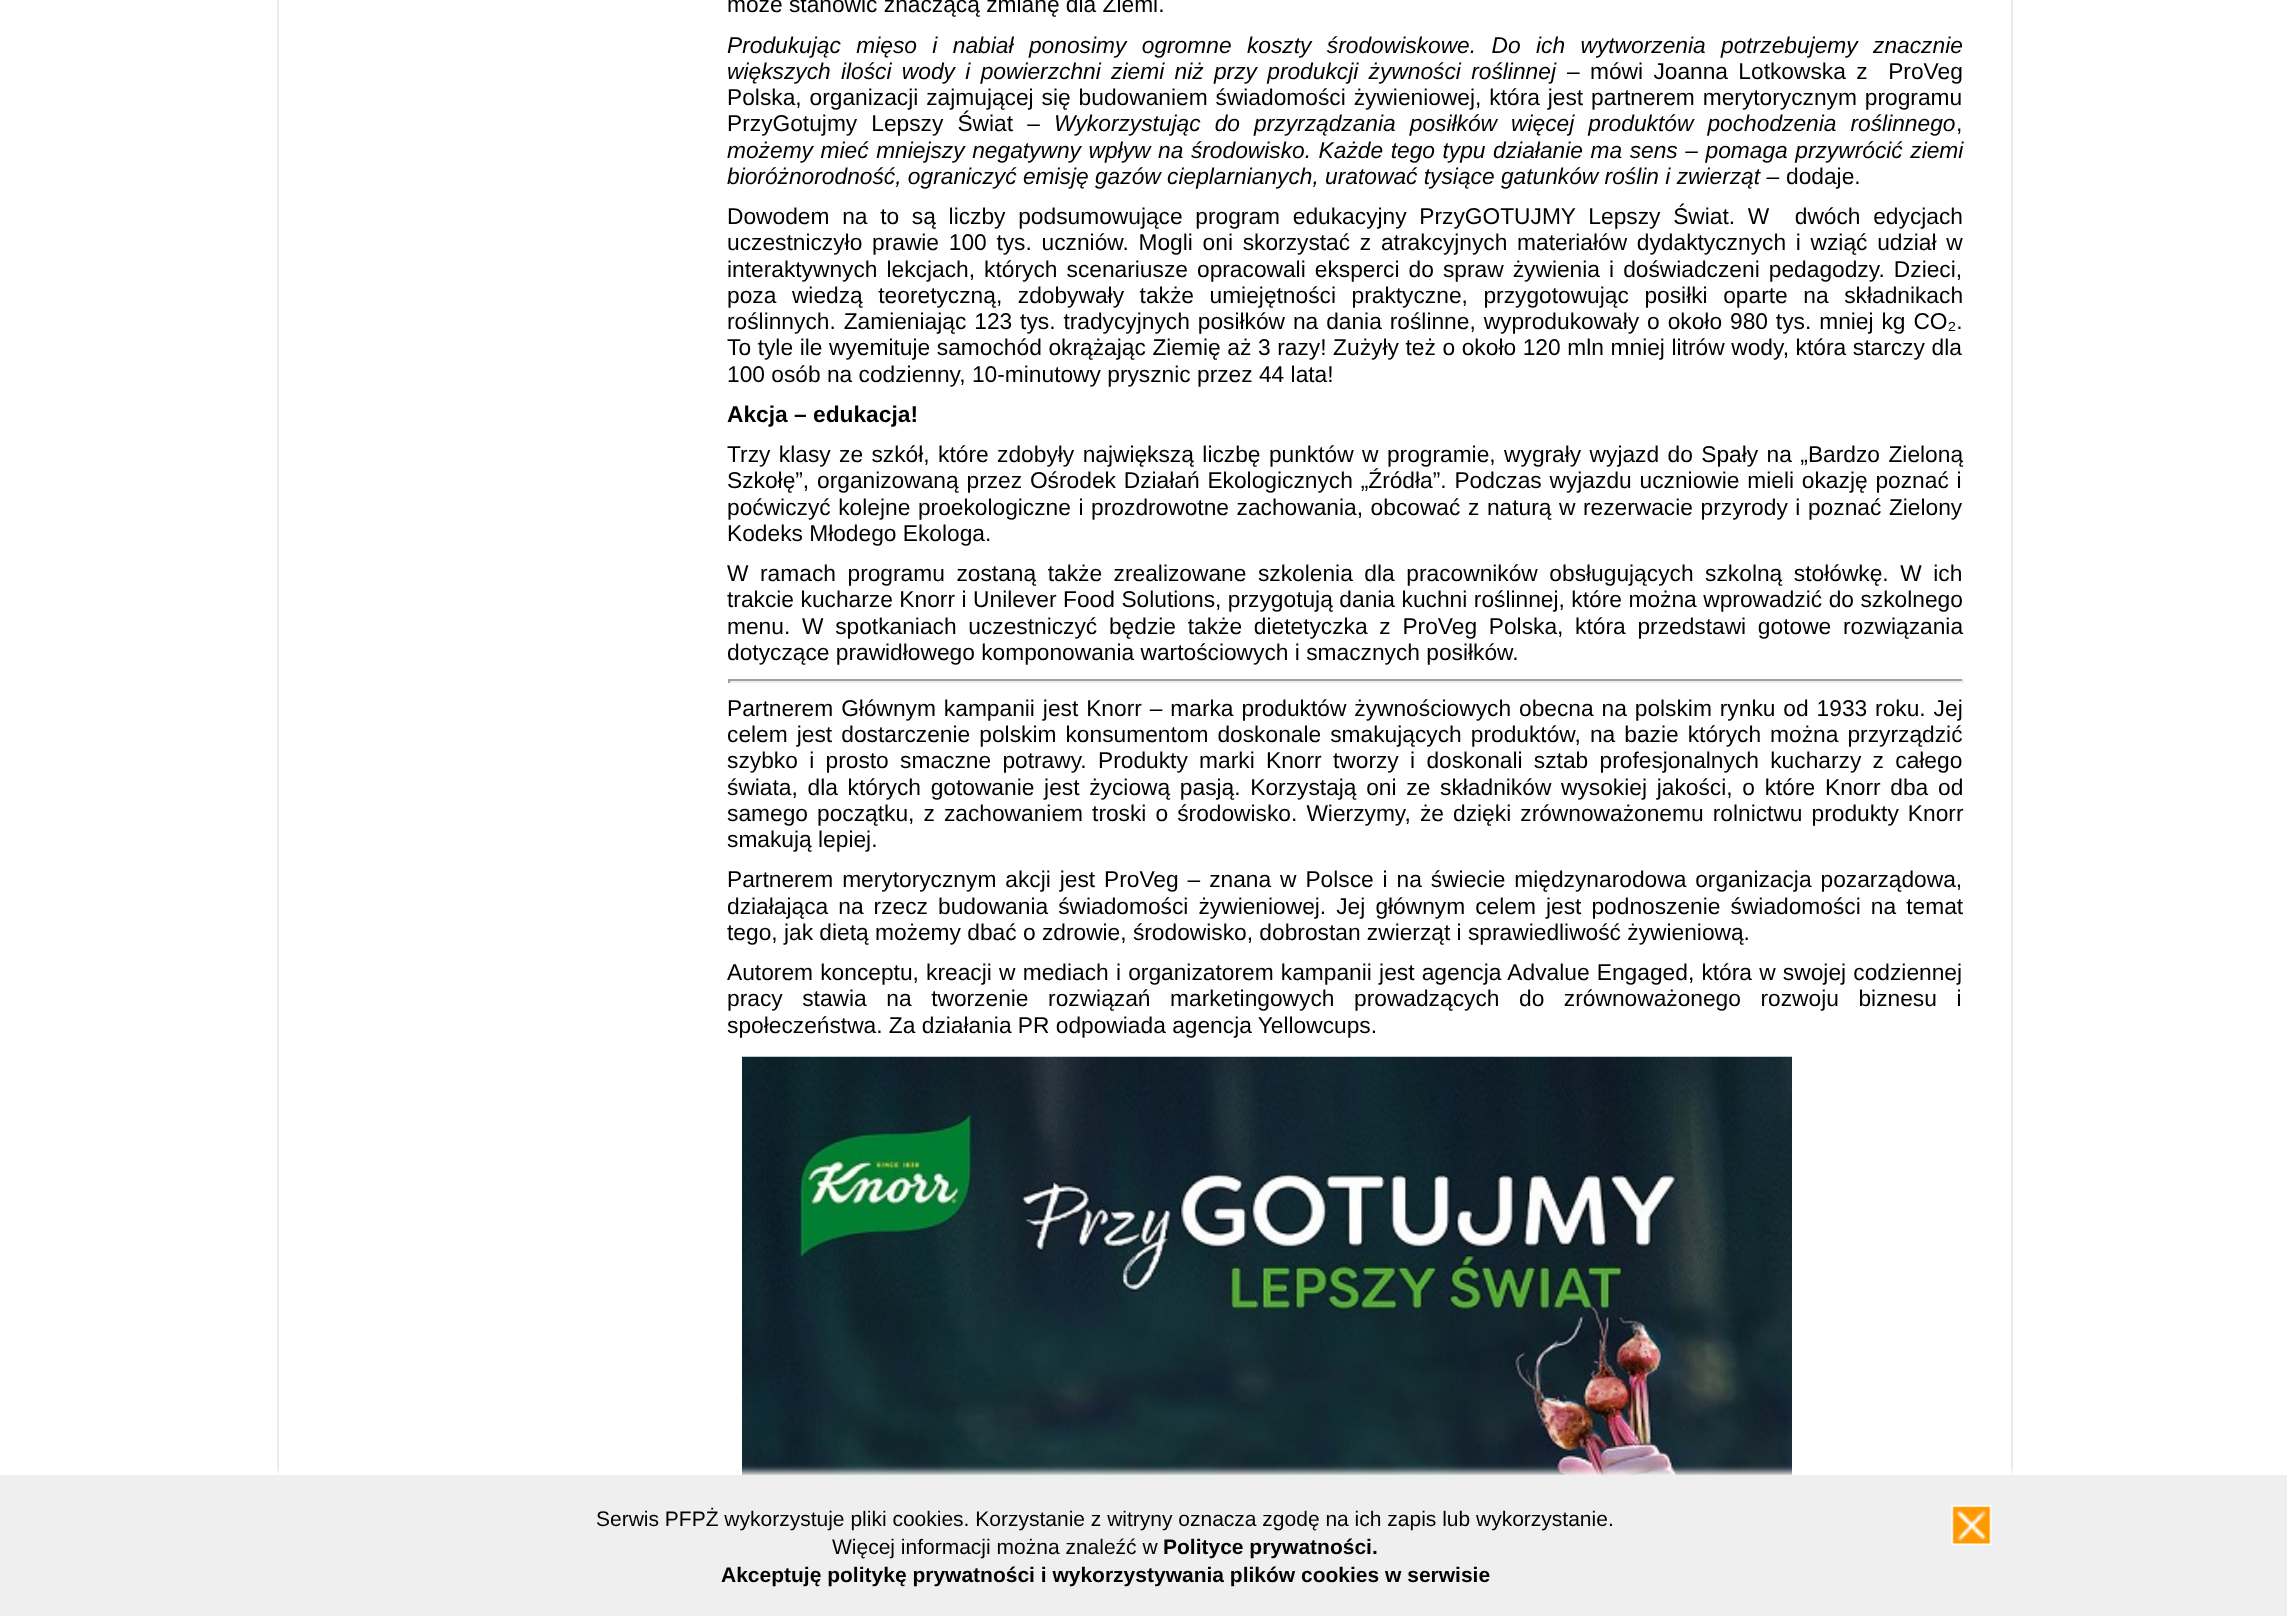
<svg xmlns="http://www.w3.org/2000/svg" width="2287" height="1616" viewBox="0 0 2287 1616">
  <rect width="100%" height="100%" fill="rgb(255,255,255)"/>
  <rect x="278" y="-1" width="1734" height="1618" fill="none" stroke="rgb(236,236,228)" stroke-width="2"/>
  <text x="727" y="12" font-family="Liberation Sans" font-size="22.75" fill="rgb(0,0,0)">może stanowić znaczącą zmianę dla Ziemi.</text>
  <g font-family="Liberation Sans" font-size="22.75" font-style="italic" fill="rgb(0,0,0)">
    <text>
      <tspan x="727" y="53" word-spacing="9.1">Produkując mięso i nabiał ponosimy ogromne koszty środowiskowe. Do ich wytworzenia potrzebujemy znacznie</tspan>
      <tspan x="727" y="79" word-spacing="4">większych ilości wody i powierzchni ziemi niż przy produkcji żywności roślinnej</tspan>
    </text>
  </g>
  <g font-family="Liberation Sans" font-size="22.75" fill="rgb(0,0,0)">
    <text x="1567" y="79" word-spacing="4" xml:space="preserve">– mówi Joanna Lotkowska z  ProVeg</text>
    <text>
      <tspan x="727" y="105" word-spacing="1.6">Polska, organizacji zajmującej się budowaniem świadomości żywieniowej, która jest partnerem merytorycznym programu</tspan>
      <tspan x="727" y="131" word-spacing="7.75">PrzyGotujmy Lepszy Świat –</tspan>
    </text>
  </g>
  <text x="1054" y="131" word-spacing="7.75" font-family="Liberation Sans" font-size="22.75" font-style="italic" fill="rgb(0,0,0)">Wykorzystując do przyrządzania posiłków więcej produktów pochodzenia roślinnego</text>
  <text x="1956" y="131" font-family="Liberation Sans" font-size="22.75" fill="rgb(0,0,0)">,</text>
  <g font-family="Liberation Sans" font-size="22.75" font-style="italic" fill="rgb(0,0,0)">
    <text>
      <tspan x="727" y="158" word-spacing="1.25">możemy mieć mniejszy negatywny wpływ na środowisko. Każde tego typu działanie ma sens – pomaga przywrócić ziemi</tspan>
      <tspan x="727" y="184">bioróżnorodność, ograniczyć emisję gazów cieplarnianych, uratować tysiące gatunków roślin i zwierząt –</tspan>
    </text>
  </g>
  <g font-family="Liberation Sans" font-size="22.75" fill="rgb(0,0,0)">
    <text x="1786" y="184">dodaje.</text>
    <text xml:space="preserve"><tspan x="727" y="224" word-spacing="6.4">Dowodem na to są liczby podsumowujące program edukacyjny PrzyGOTUJMY Lepszy Świat. W  dwóch edycjach</tspan><tspan x="727" y="250" word-spacing="3.4">uczestniczyło prawie 100 tys. uczniów. Mogli oni skorzystać z atrakcyjnych materiałów dydaktycznych i wziąć udział w</tspan><tspan x="727" y="277" word-spacing="2.75">interaktywnych lekcjach, których scenariusze opracowali eksperci do spraw żywienia i doświadczeni pedagodzy. Dzieci,</tspan><tspan x="727" y="303" word-spacing="9.25">poza wiedzą teoretyczną, zdobywały także umiejętności praktyczne, przygotowując posiłki oparte na składnikach</tspan><tspan x="727" y="329" word-spacing="1.6">roślinnych. Zamieniając 123 tys. tradycyjnych posiłków na dania roślinne, wyprodukowały o około 980 tys. mniej kg CO₂.</tspan><tspan x="727" y="355" word-spacing="0.3">To tyle ile wyemituje samochód okrążając Ziemię aż 3 razy! Zużyły też o około 120 mln mniej litrów wody, która starczy dla</tspan><tspan x="727" y="382">100 osób na codzienny, 10-minutowy prysznic przez 44 lata!</tspan></text>
  </g>
  <text x="727" y="422" font-family="Liberation Sans" font-size="22.75" font-weight="bold" fill="rgb(0,0,0)">Akcja – edukacja!</text>
  <g font-family="Liberation Sans" font-size="22.75" fill="rgb(0,0,0)">
    <text>
      <tspan x="727" y="462" word-spacing="2.1">Trzy klasy ze szkół, które zdobyły największą liczbę punktów w programie, wygrały wyjazd do Spały na „Bardzo Zieloną</tspan>
      <tspan x="727" y="488" word-spacing="1.5">Szkołę”, organizowaną przez Ośrodek Działań Ekologicznych „Źródła”. Podczas wyjazdu uczniowie mieli okazję poznać i</tspan>
      <tspan x="727" y="515" word-spacing="1.25">poćwiczyć kolejne proekologiczne i prozdrowotne zachowania, obcować z naturą w rezerwacie przyrody i poznać Zielony</tspan>
      <tspan x="727" y="541">Kodeks Młodego Ekologa.</tspan>
      <tspan x="727" y="581" word-spacing="5.25">W ramach programu zostaną także zrealizowane szkolenia dla pracowników obsługujących szkolną stołówkę. W ich</tspan>
      <tspan x="727" y="607" word-spacing="0.2">trakcie kucharze Knorr i Unilever Food Solutions, przygotują dania kuchni roślinnej, które można wprowadzić do szkolnego</tspan>
      <tspan x="727" y="634" word-spacing="5.4">menu. W spotkaniach uczestniczyć będzie także dietetyczka z ProVeg Polska, która przedstawi gotowe rozwiązania</tspan>
      <tspan x="727" y="660">dotyczące prawidłowego komponowania wartościowych i smacznych posiłków.</tspan>
    </text>
  </g>
  <rect x="728" y="679" width="1236" height="2" fill="rgb(159,159,159)"/>
  <rect x="1962" y="679" width="2" height="4" fill="rgb(238,238,238)"/>
  <rect x="728" y="681" width="1236" height="2" fill="rgb(238,238,238)"/>
  <rect x="728" y="679" width="2" height="4" fill="rgb(159,159,159)"/>
  <g font-family="Liberation Sans" font-size="22.75" fill="rgb(0,0,0)">
    <text>
      <tspan x="727" y="716" word-spacing="1.6">Partnerem Głównym kampanii jest Knorr – marka produktów żywnościowych obecna na polskim rynku od 1933 roku. Jej</tspan>
      <tspan x="727" y="742" word-spacing="2.75">celem jest dostarczenie polskim konsumentom doskonale smakujących produktów, na bazie których można przyrządzić</tspan>
      <tspan x="727" y="768" word-spacing="5">szybko i prosto smaczne potrawy. Produkty marki Knorr tworzy i doskonali sztab profesjonalnych kucharzy z całego</tspan>
      <tspan x="727" y="795" word-spacing="3.4">świata, dla których gotowanie jest życiową pasją. Korzystają oni ze składników wysokiej jakości, o które Knorr dba od</tspan>
      <tspan x="727" y="821" word-spacing="2.75">samego początku, z zachowaniem troski o środowisko. Wierzymy, że dzięki zrównoważonemu rolnictwu produkty Knorr</tspan>
      <tspan x="727" y="847">smakują lepiej.</tspan>
      <tspan x="727" y="887" word-spacing="2.6">Partnerem merytorycznym akcji jest ProVeg – znana w Polsce i na świecie międzynarodowa organizacja pozarządowa,</tspan>
      <tspan x="727" y="914" word-spacing="3.75">działająca na rzecz budowania świadomości żywieniowej. Jej głównym celem jest podnoszenie świadomości na temat</tspan>
      <tspan x="727" y="940">tego, jak dietą możemy dbać o zdrowie, środowisko, dobrostan zwierząt i sprawiedliwość żywieniową.</tspan>
      <tspan x="727" y="980" word-spacing="0.9">Autorem konceptu, kreacji w mediach i organizatorem kampanii jest agencja Advalue Engaged, która w swojej codziennej</tspan>
      <tspan x="727" y="1006" word-spacing="13.25">pracy stawia na tworzenie rozwiązań marketingowych prowadzących do zrównoważonego rozwoju biznesu i</tspan>
      <tspan x="727" y="1033">społeczeństwa. Za działania PR odpowiada agencja Yellowcups.</tspan>
    </text>
  </g>
  <image x="742" y="1056" width="1050" height="419" href="pic1.png"/>
  <rect x="0" y="1472" width="2287" height="142" fill="rgb(255,255,255)" filter="blur(3.5px)"/>
  <rect x="0" y="1475" width="2287" height="141" fill="rgb(239,239,239)"/>
  <g font-family="Liberation Sans" font-size="21" fill="rgb(0,0,0)">
    <text x="596" y="1526">Serwis PFPŻ wykorzystuje pliki cookies. Korzystanie z witryny oznacza zgodę na ich zapis lub wykorzystanie.</text>
    <text x="832" y="1554">Więcej informacji można znaleźć w</text>
  </g>
  <g font-family="Liberation Sans" font-size="21" font-weight="bold" fill="rgb(0,0,0)">
    <text x="1163" y="1554">Polityce prywatności.</text>
    <text x="721" y="1582">Akceptuję politykę prywatności i wykorzystywania plików cookies w serwisie</text>
  </g>
  <image x="1951" y="1505" width="41" height="41" href="pic2.png"/>
</svg>
